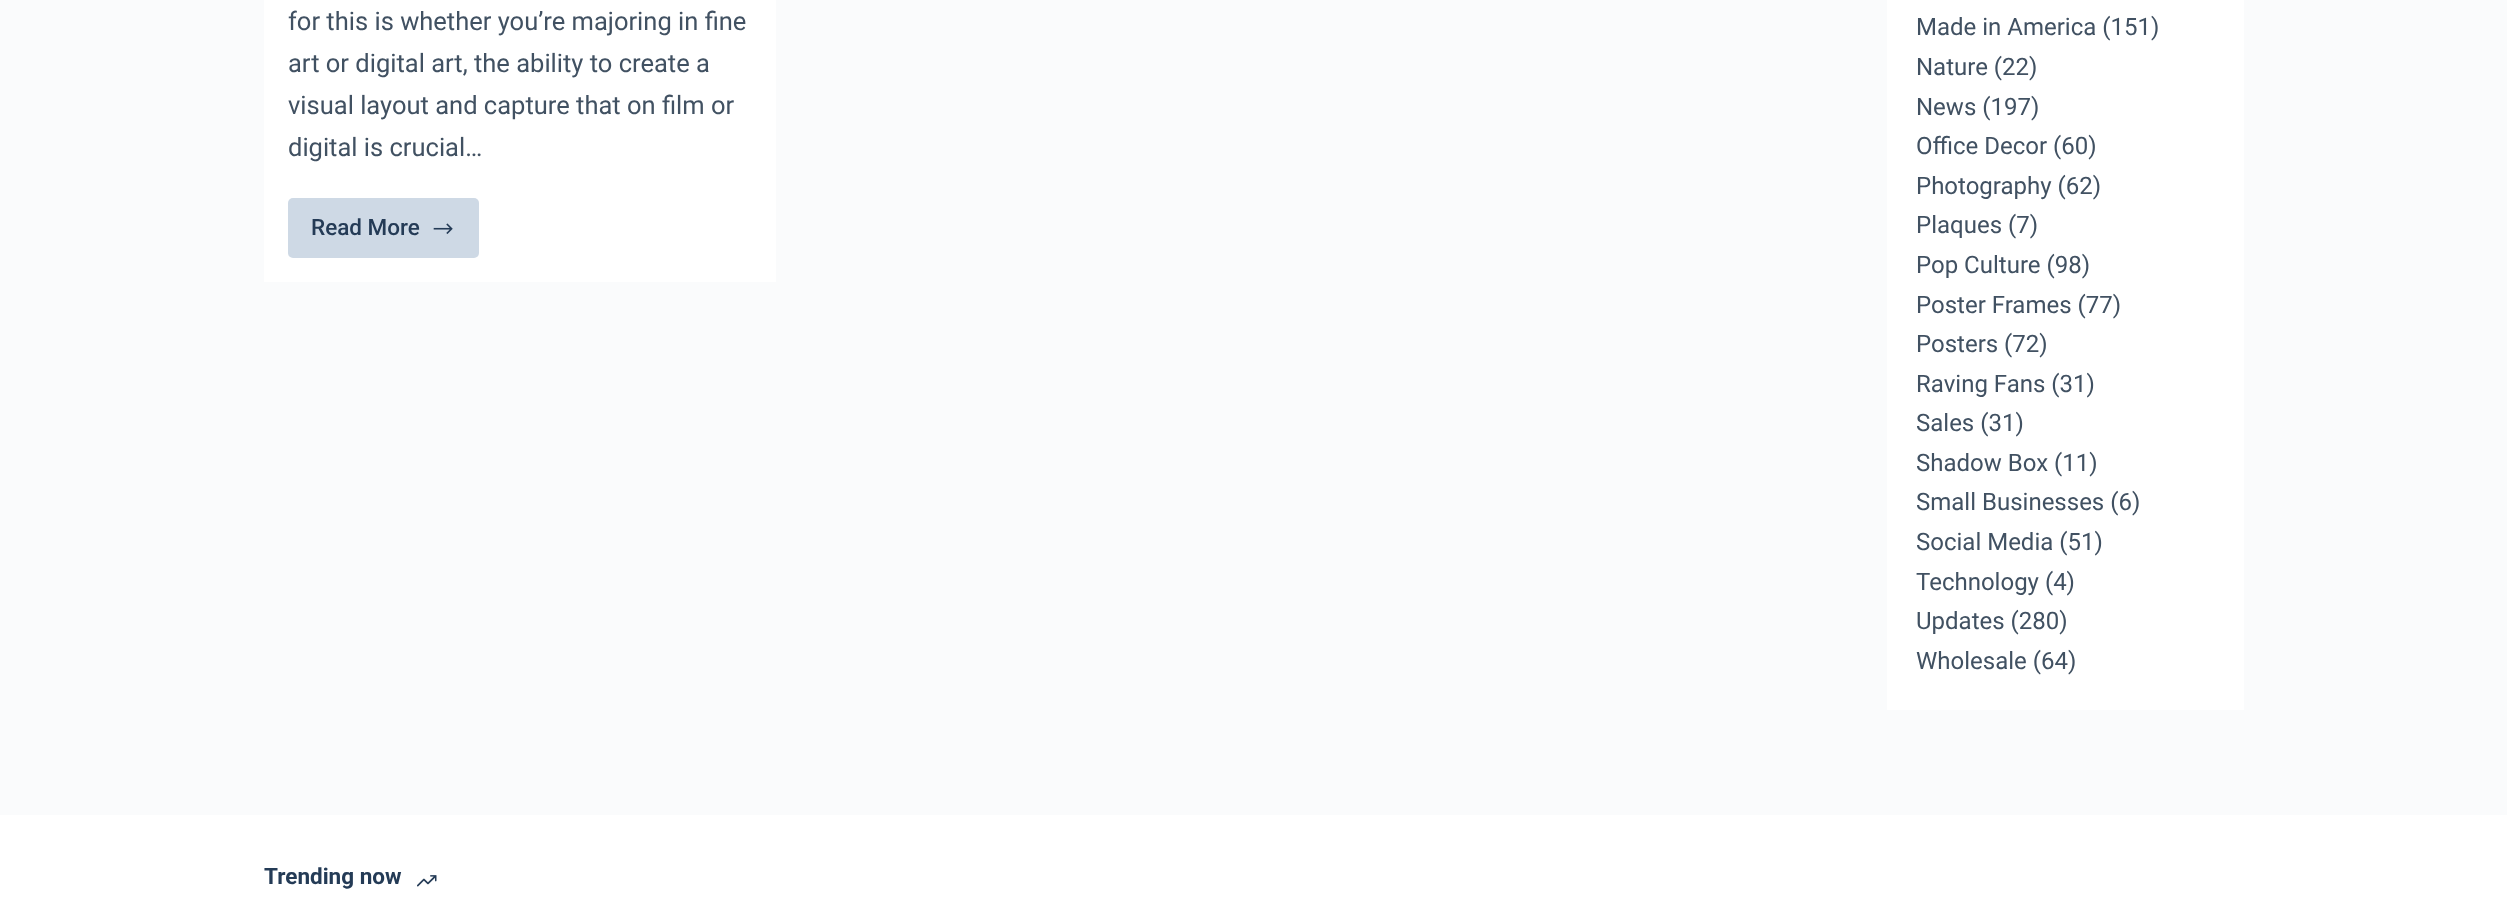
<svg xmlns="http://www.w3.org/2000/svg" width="2507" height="922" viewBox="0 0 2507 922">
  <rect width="100%" height="100%" fill="rgb(250,251,252)"/>
  <rect x="264" y="0" width="512" height="282" fill="rgb(255,255,255)"/>
  <g font-family="Roboto" font-size="25.5" fill="rgb(65,81,98)">
    <text>
      <tspan x="288" y="30">for this is whether you’re majoring in fine</tspan>
      <tspan x="288" y="72">art or digital art, the ability to create a</tspan>
      <tspan x="288" y="114">visual layout and capture that on film or</tspan>
      <tspan x="288" y="156">digital is crucial…</tspan>
    </text>
  </g>
  <rect x="288" y="198" width="191" height="60" rx="5" fill="rgb(206,217,229)"/>
  <text x="311" y="235" font-family="Roboto" font-size="22.5" font-weight="500" fill="rgb(36,59,86)">Read More</text>
  <image x="433" y="223" width="20" height="11" href="pic1.png"/>
  <rect x="1887" y="0" width="357" height="710" fill="rgb(255,255,255)"/>
  <g font-family="Roboto" font-size="24" fill="rgb(65,81,98)">
    <text>
      <tspan x="1916" y="35">Made in America (151)</tspan>
      <tspan x="1916" y="75">Nature (22)</tspan>
      <tspan x="1916" y="115">News (197)</tspan>
      <tspan x="1916" y="154">Office Decor (60)</tspan>
      <tspan x="1916" y="194">Photography (62)</tspan>
      <tspan x="1916" y="233">Plaques (7)</tspan>
      <tspan x="1916" y="273">Pop Culture (98)</tspan>
      <tspan x="1916" y="313">Poster Frames (77)</tspan>
      <tspan x="1916" y="352">Posters (72)</tspan>
      <tspan x="1916" y="392">Raving Fans (31)</tspan>
      <tspan x="1916" y="431">Sales (31)</tspan>
      <tspan x="1916" y="471">Shadow Box (11)</tspan>
      <tspan x="1916" y="510">Small Businesses (6)</tspan>
      <tspan x="1916" y="550">Social Media (51)</tspan>
      <tspan x="1916" y="590">Technology (4)</tspan>
      <tspan x="1916" y="629">Updates (280)</tspan>
      <tspan x="1916" y="669">Wholesale (64)</tspan>
    </text>
  </g>
  <rect x="0" y="815" width="2507" height="107" fill="rgb(255,255,255)"/>
  <text x="264" y="884" font-family="Roboto" font-size="22.5" font-weight="bold" fill="rgb(36,59,86)">Trending now</text>
  <image x="417" y="875" width="20" height="12" href="pic2.png"/>
</svg>
